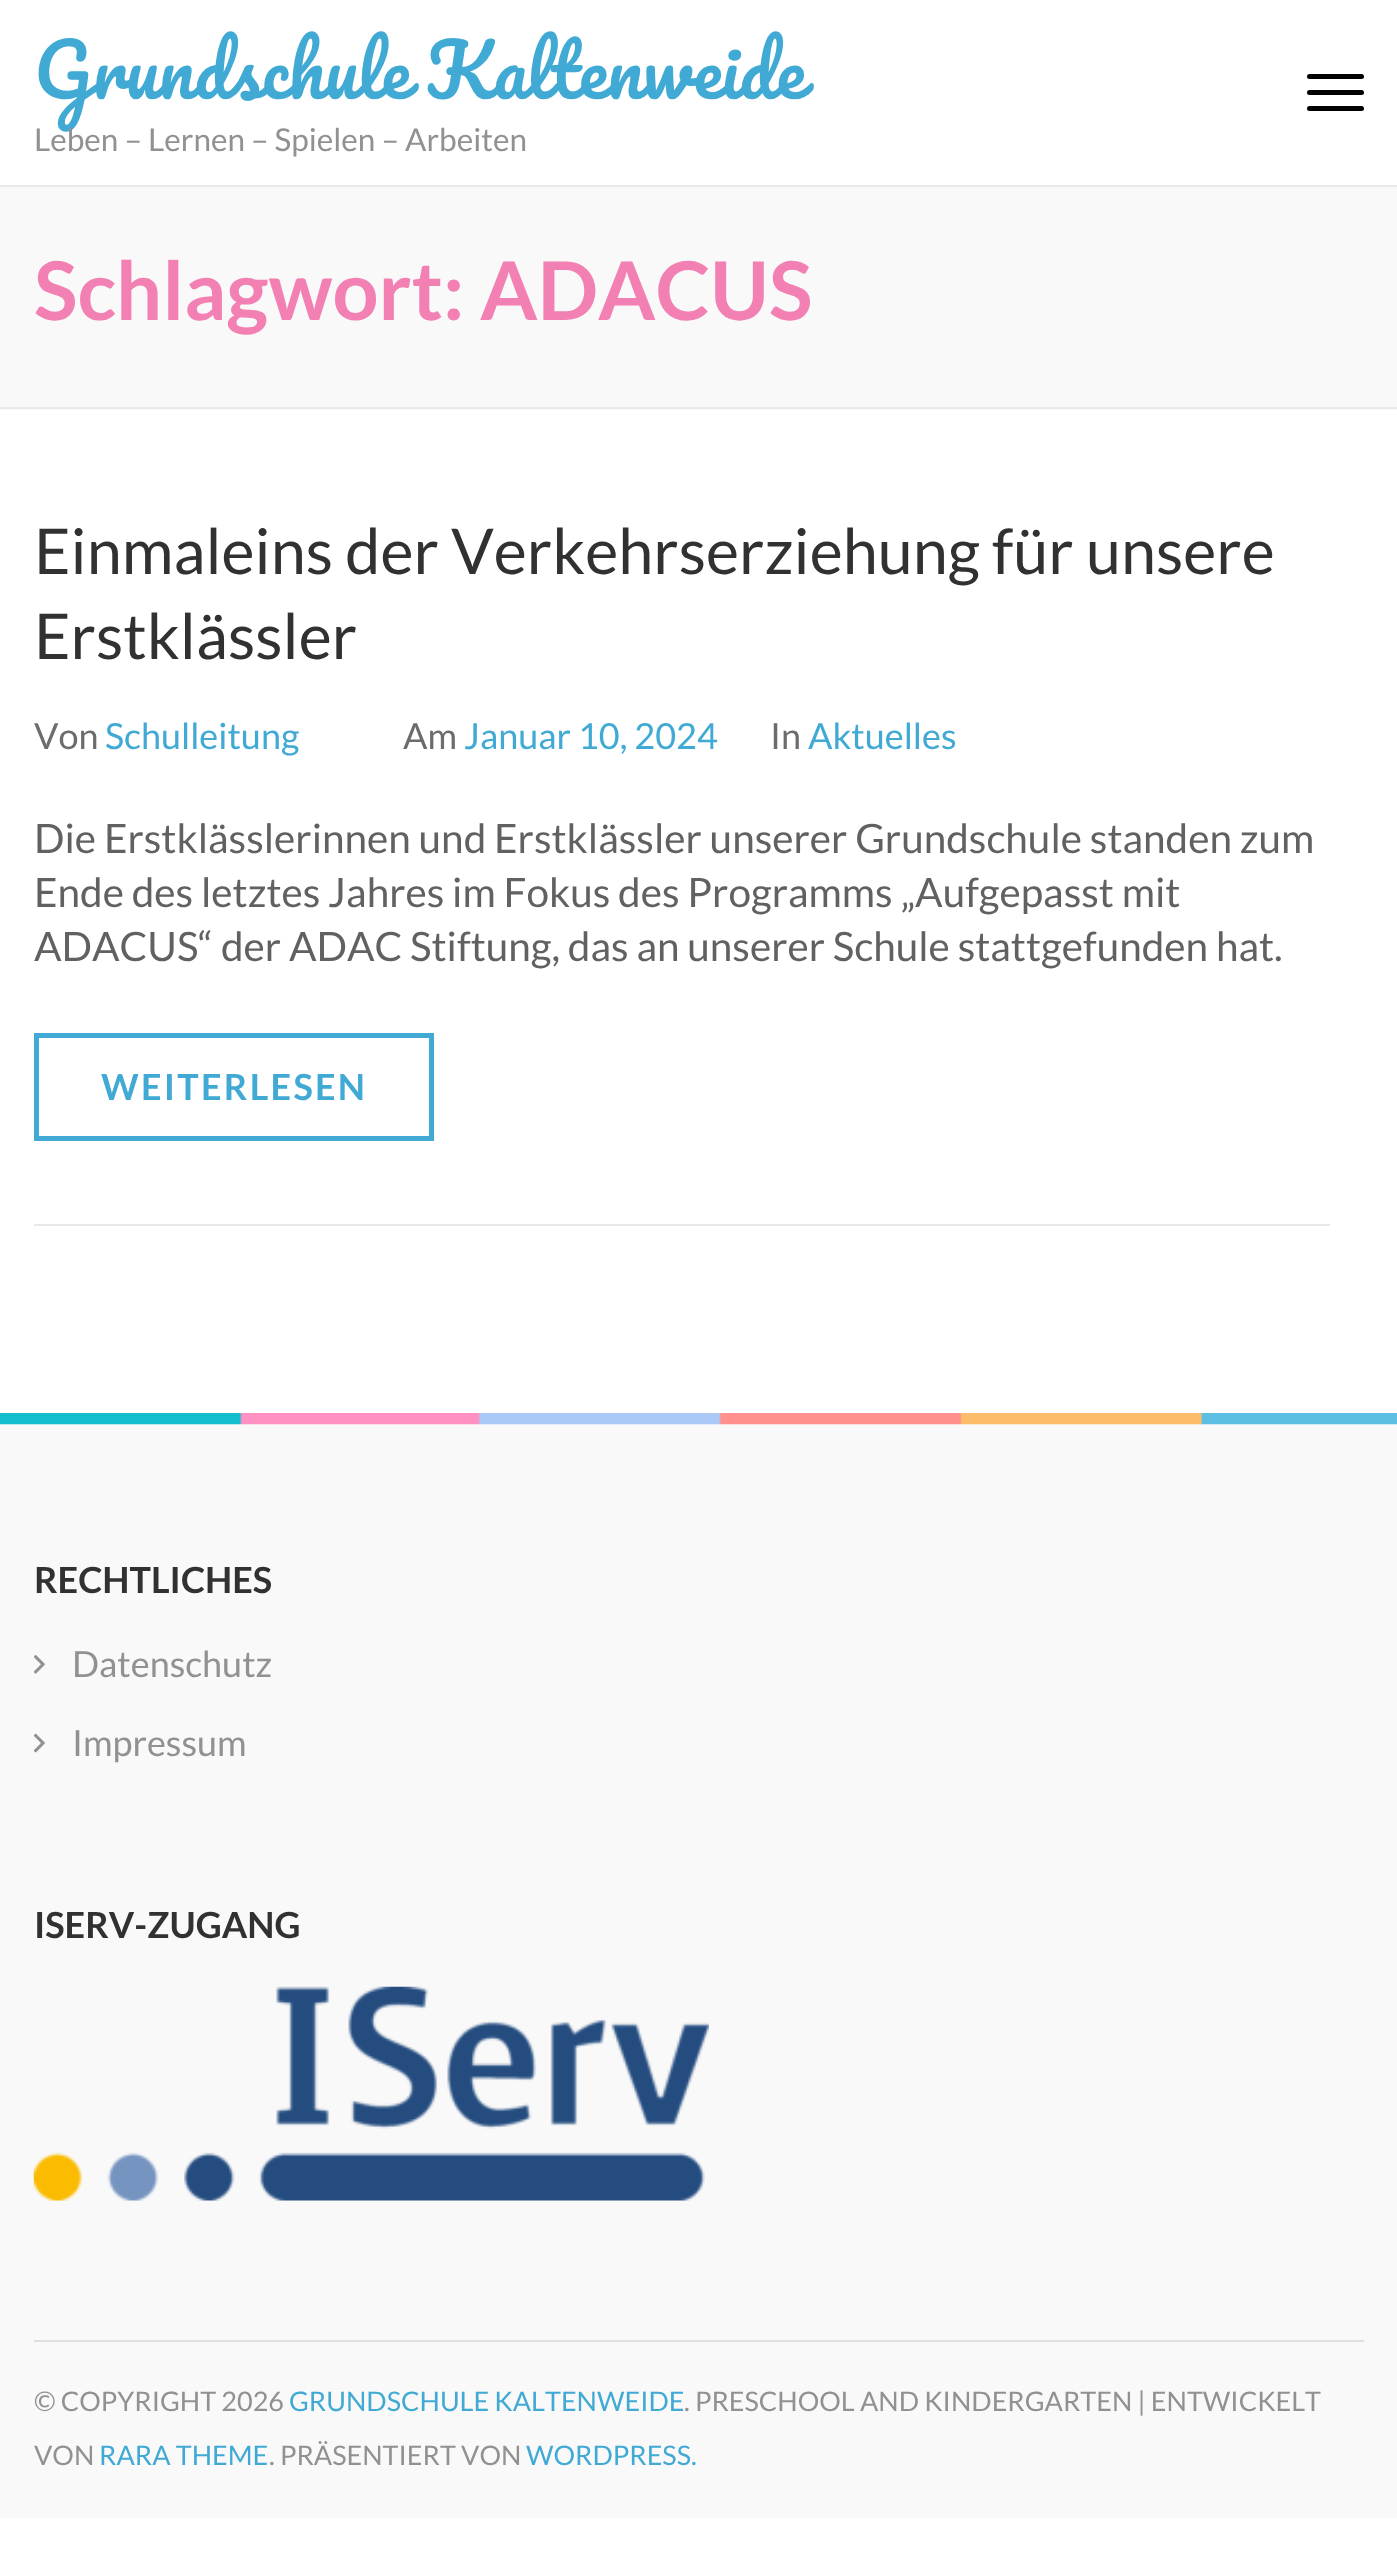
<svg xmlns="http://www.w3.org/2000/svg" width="1397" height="2569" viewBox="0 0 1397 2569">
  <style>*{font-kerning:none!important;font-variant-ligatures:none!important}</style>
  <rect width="100%" height="100%" fill="rgb(255,255,255)"/>
  <text x="34" y="99" word-spacing="-3" font-family="Pacifico" font-size="72" fill="rgb(65,170,212)">Grundschule Kaltenweide</text>
  <text x="34" y="151" font-family="Lato" font-size="31.5" fill="rgb(145,145,145)">Leben – Lernen – Spielen – Arbeiten</text>
  <rect x="1307" y="74" width="57" height="5" rx="2.5" fill="rgb(0,0,0)"/>
  <rect x="1307" y="90" width="57" height="5" rx="2.5" fill="rgb(0,0,0)"/>
  <rect x="1307" y="106" width="57" height="5" rx="2.5" fill="rgb(0,0,0)"/>
  <rect x="0" y="187" width="1397" height="223" fill="rgb(249,249,249)"/>
  <rect x="0" y="185" width="1397" height="2" fill="rgb(233,233,233)"/>
  <rect x="0" y="407" width="1397" height="2" fill="rgb(233,233,233)"/>
  <text x="34" y="320" font-family="Lato" font-size="81" font-weight="bold" fill="rgb(243,128,178)">Schlagwort: ADACUS</text>
  <rect x="34" y="1224" width="1296" height="2" fill="rgb(233,233,233)"/>
  <g font-family="Lato" font-size="63" fill="rgb(49,49,49)">
    <text>
      <tspan x="34" y="574">Einmaleins der Verkehrserziehung für unsere</tspan>
      <tspan x="34" y="659">Erstklässler</tspan>
    </text>
  </g>
  <text x="34" y="749" font-family="Lato" font-size="36" fill="rgb(108,108,108)">Von</text>
  <text x="105" y="749" font-family="Lato" font-size="36" fill="rgb(65,170,212)">Schulleitung</text>
  <text x="403" y="749" font-family="Lato" font-size="36" fill="rgb(108,108,108)">Am</text>
  <text x="464" y="749" font-family="Lato" font-size="36" fill="rgb(65,170,212)">Januar 10, 2024</text>
  <text x="770" y="749" font-family="Lato" font-size="36" fill="rgb(108,108,108)">In</text>
  <text x="808" y="749" font-family="Lato" font-size="36" fill="rgb(65,170,212)">Aktuelles</text>
  <g font-family="Lato" font-size="40.5" fill="rgb(97,97,97)">
    <text>
      <tspan x="34" y="853">Die Erstklässlerinnen und Erstklässler unserer Grundschule standen zum</tspan>
      <tspan x="34" y="907">Ende des letztes Jahres im Fokus des Programms „Aufgepasst mit</tspan>
      <tspan x="34" y="961">ADACUS“ der ADAC Stiftung, das an unserer Schule stattgefunden hat.</tspan>
    </text>
  </g>
  <rect x="36.5" y="1035.5" width="395" height="103" fill="none" stroke="rgb(65,170,212)" stroke-width="5"/>
  <text x="101" y="1100" font-family="Lato" font-size="36" font-weight="bold" letter-spacing="2.25" fill="rgb(65,170,212)">WEITERLESEN</text>
  <rect x="0" y="1424" width="1397" height="1094" fill="rgb(249,249,249)"/>
  <image x="0" y="1413" width="1397" height="12" href="pic1.png"/>
  <rect x="34" y="2340" width="1330" height="2" fill="rgb(224,224,224)"/>
  <text x="34" y="1593" font-family="Lato" font-size="36" font-weight="bold" fill="rgb(49,49,49)">RECHTLICHES</text>
  <image x="34" y="1655" width="11" height="19" href="pic2.png"/>
  <text x="72" y="1677" font-family="Lato" font-size="36" fill="rgb(145,145,145)">Datenschutz</text>
  <image x="34" y="1733" width="11" height="20" href="pic3.png"/>
  <text x="72" y="1756" font-family="Lato" font-size="36" fill="rgb(145,145,145)">Impressum</text>
  <text x="34" y="1938" font-family="Lato" font-size="36" font-weight="bold" fill="rgb(49,49,49)">ISERV-ZUGANG</text>
  <image x="33" y="1986" width="676" height="215" href="pic4.png"/>
  <text x="34" y="2411" font-family="Lato" font-size="27" fill="rgb(145,145,145)">© COPYRIGHT 2026</text>
  <text x="289" y="2411" font-family="Lato" font-size="27" fill="rgb(65,170,212)">GRUNDSCHULE KALTENWEIDE</text>
  <g font-family="Lato" font-size="27" fill="rgb(145,145,145)">
    <text x="684" y="2411">. PRESCHOOL AND KINDERGARTEN | ENTWICKELT</text>
    <text x="34" y="2465">VON</text>
  </g>
  <text x="99" y="2465" font-family="Lato" font-size="27" fill="rgb(65,170,212)">RARA THEME</text>
  <text x="269" y="2465" font-family="Lato" font-size="27" fill="rgb(145,145,145)">. PRÄSENTIERT VON</text>
  <text x="526" y="2465" font-family="Lato" font-size="27" fill="rgb(65,170,212)">WORDPRESS.</text>
</svg>
